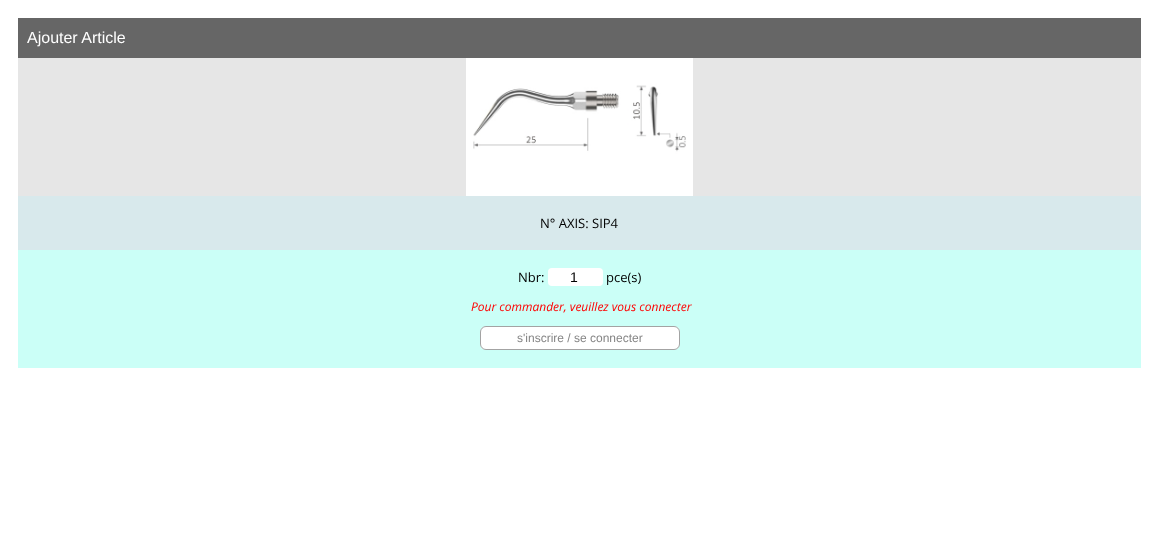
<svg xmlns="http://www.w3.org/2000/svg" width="1159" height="554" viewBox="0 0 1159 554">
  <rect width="100%" height="100%" fill="rgb(255,255,255)"/>
  <rect x="18" y="18" width="1123" height="40" fill="rgb(102,102,102)"/>
  <text x="27" y="43" font-family="Liberation Sans" font-size="16" fill="rgb(255,255,255)">Ajouter Article</text>
  <rect x="18" y="58" width="1123" height="138" fill="rgb(230,230,230)"/>
  <image x="466" y="58" width="227" height="138" href="pic1.png"/>
  <rect x="18" y="196" width="1123" height="54" fill="rgb(216,233,236)"/>
  <text x="540" y="228" font-family="Open Sans" font-size="13" fill="rgb(0,0,0)">N° AXIS: SIP4</text>
  <rect x="18" y="250" width="1123" height="118" fill="rgb(203,255,247)"/>
  <text x="518" y="282" font-family="Open Sans" font-size="13" fill="rgb(0,0,0)">Nbr:</text>
  <rect x="548" y="268" width="55" height="18" rx="4" fill="rgb(255,255,255)"/>
  <text x="570" y="282" font-family="Liberation Sans" font-size="14" letter-spacing="1" fill="rgb(0,0,0)">1</text>
  <text x="606" y="282" font-family="Open Sans" font-size="13" fill="rgb(0,0,0)">pce(s)</text>
  <text x="471" y="311" font-family="Open Sans" font-size="12" font-style="italic" fill="rgb(255,0,0)">Pour commander, veuillez vous connecter</text>
  <rect x="480" y="326" width="200" height="24" rx="6" fill="rgb(255,255,255)"/>
  <rect x="480.5" y="326.5" width="199" height="23" rx="5.5" fill="none" stroke="rgba(102,102,102,0.6)"/>
  <text x="517" y="342" font-family="Liberation Sans" font-size="12" fill="rgb(133,133,133)">s'inscrire / se connecter</text>
</svg>
